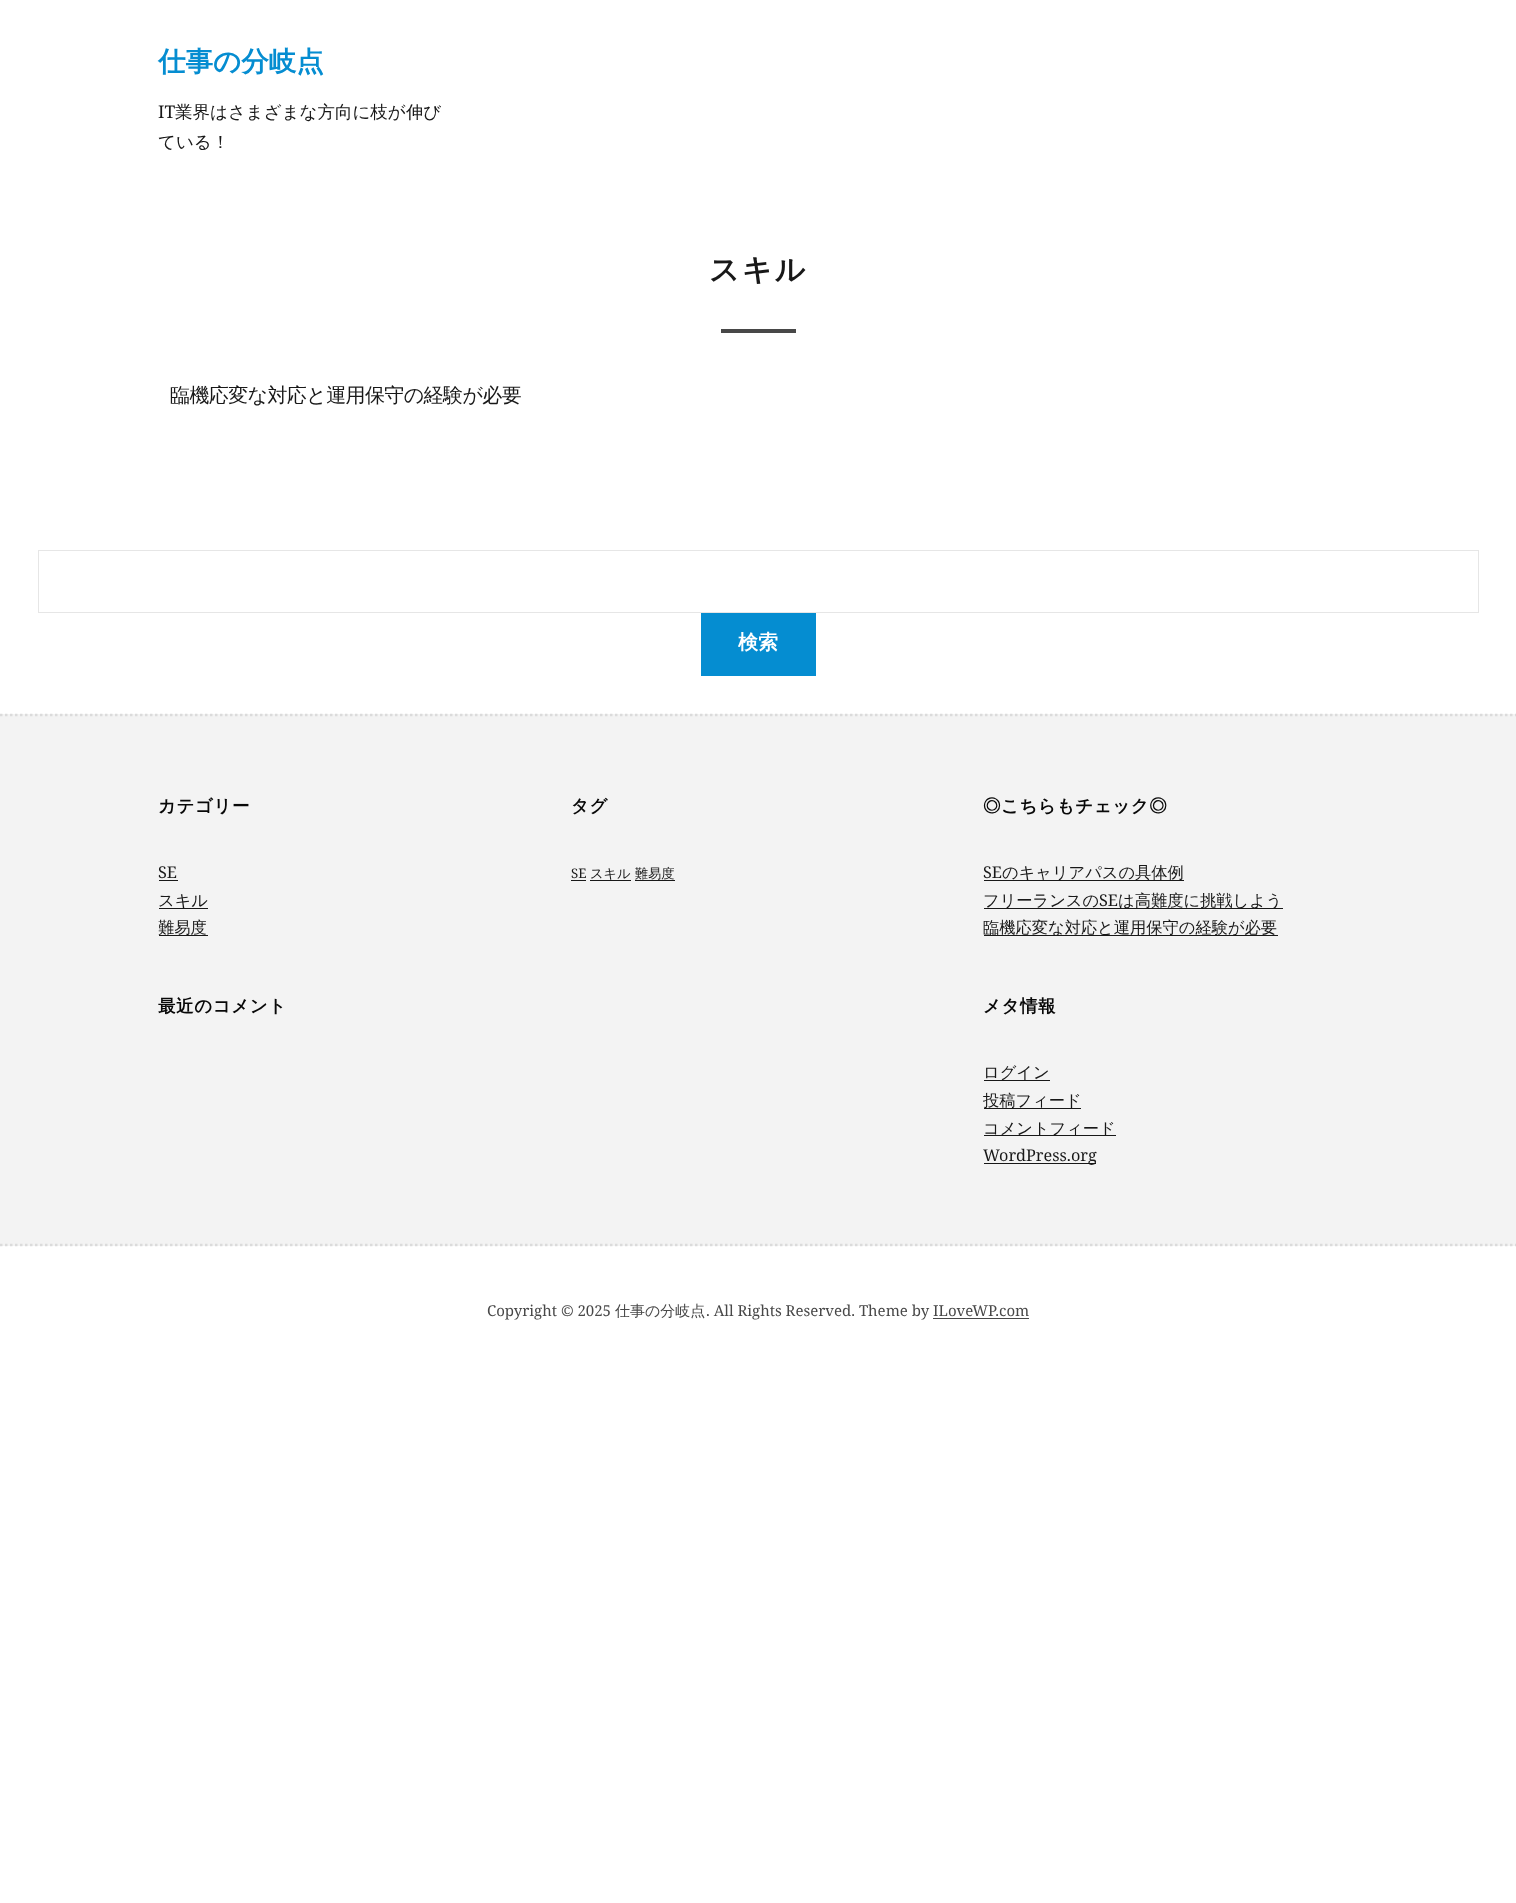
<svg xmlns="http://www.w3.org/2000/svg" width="1516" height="1903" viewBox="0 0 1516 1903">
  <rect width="100%" height="100%" fill="rgb(255,255,255)"/>
  <text x="158" y="71" font-family="WenQuanYi Zen Hei" font-size="27.5" font-weight="bold" fill="rgb(5,141,209)">仕事の分岐点</text>
  <text x="158" y="118" font-family="Noto Serif" font-size="17.5" fill="rgb(24,24,24)">IT</text>
  <g font-family="WenQuanYi Zen Hei" font-size="17.5" font-weight="500" fill="rgb(24,24,24)">
    <text x="175" y="118">業界はさまざまな方向に枝が伸び</text>
    <text x="158" y="148">ている！</text>
  </g>
  <text x="709" y="280" font-family="WenQuanYi Zen Hei" font-size="30" font-weight="bold" letter-spacing="2" fill="rgb(24,24,24)">スキル</text>
  <rect x="721" y="329" width="75" height="4" fill="rgb(72,72,72)"/>
  <text x="170" y="402" font-family="WenQuanYi Zen Hei" font-size="20" font-weight="500" letter-spacing="-0.6" fill="rgb(24,24,24)">臨機応変な対応と運用保守の経験が必要</text>
  <rect x="38.5" y="550.5" width="1440" height="62" fill="none" stroke="rgb(230,230,230)"/>
  <rect x="701" y="613" width="115" height="63" fill="rgb(5,141,209)"/>
  <text x="738" y="649" font-family="WenQuanYi Zen Hei" font-size="20" font-weight="bold" fill="rgb(255,255,255)">検索</text>
  <rect x="0" y="714" width="1516" height="532" fill="rgb(243,243,243)"/>
  <path d="M0 715H1516" fill="none" stroke="rgb(219,219,219)" stroke-width="2.5" stroke-dasharray="2.5 2.5"/>
  <path d="M0 1245H1516" fill="none" stroke="rgb(219,219,219)" stroke-width="2.5" stroke-dasharray="2.5 2.5"/>
  <text x="158" y="812" font-family="WenQuanYi Zen Hei" font-size="17.5" font-weight="bold" letter-spacing="0.6" fill="rgb(8,8,8)">カテゴリー</text>
  <text x="158" y="878" font-family="Noto Serif" font-size="16.25" fill="rgb(24,24,24)">SE</text>
  <rect x="159" y="880" width="19" height="1" fill="rgb(24,24,24)"/>
  <rect x="159" y="908" width="49" height="1" fill="rgb(24,24,24)"/>
  <text x="158" y="906" font-family="WenQuanYi Zen Hei" font-size="16.25" font-weight="500" fill="rgb(24,24,24)">スキル</text>
  <rect x="159" y="935" width="49" height="1" fill="rgb(24,24,24)"/>
  <text x="158" y="933" font-family="WenQuanYi Zen Hei" font-size="16.25" font-weight="500" fill="rgb(24,24,24)">難易度</text>
  <g font-family="WenQuanYi Zen Hei" font-size="17.5" font-weight="bold" letter-spacing="0.6" fill="rgb(8,8,8)">
    <text x="158" y="1012">最近のコメント</text>
    <text x="571" y="812">タグ</text>
  </g>
  <text x="571" y="878" font-family="Noto Serif" font-size="13.25" fill="rgb(24,24,24)">SE</text>
  <rect x="571" y="880" width="15" height="1" fill="rgb(24,24,24)"/>
  <text x="590" y="878" font-family="WenQuanYi Zen Hei" font-size="13.25" font-weight="500" fill="rgb(24,24,24)">スキル 難易度</text>
  <rect x="590" y="880" width="41" height="1" fill="rgb(24,24,24)"/>
  <rect x="635" y="880" width="40" height="1" fill="rgb(24,24,24)"/>
  <text x="983" y="812" font-family="WenQuanYi Zen Hei" font-size="17.5" font-weight="bold" letter-spacing="0.6" fill="rgb(8,8,8)">◎こちらもチェック◎</text>
  <text x="983" y="878" font-family="Noto Serif" font-size="16.25" fill="rgb(24,24,24)">SE</text>
  <rect x="984" y="880" width="200" height="1" fill="rgb(24,24,24)"/>
  <text x="1002" y="878" font-family="WenQuanYi Zen Hei" font-size="16.25" font-weight="500" fill="rgb(24,24,24)">のキャリアパスの具体例</text>
  <rect x="984" y="908" width="299" height="1" fill="rgb(24,24,24)"/>
  <text x="983" y="906" font-family="WenQuanYi Zen Hei" font-size="16.25" font-weight="500" fill="rgb(24,24,24)">フリーランスの</text>
  <text x="1099" y="906" font-family="Noto Serif" font-size="16.25" fill="rgb(24,24,24)">SE</text>
  <text x="1118" y="906" font-family="WenQuanYi Zen Hei" font-size="16.25" font-weight="500" fill="rgb(24,24,24)">は高難度に挑戦しよう</text>
  <rect x="984" y="935" width="294" height="1" fill="rgb(24,24,24)"/>
  <text x="983" y="933" font-family="WenQuanYi Zen Hei" font-size="16.25" font-weight="500" fill="rgb(24,24,24)">臨機応変な対応と運用保守の経験が必要</text>
  <text x="983" y="1012" font-family="WenQuanYi Zen Hei" font-size="17.5" font-weight="bold" letter-spacing="0.6" fill="rgb(8,8,8)">メタ情報</text>
  <rect x="984" y="1080" width="66" height="1" fill="rgb(24,24,24)"/>
  <text x="983" y="1078" font-family="WenQuanYi Zen Hei" font-size="16.25" font-weight="500" fill="rgb(24,24,24)">ログイン</text>
  <rect x="984" y="1108" width="97" height="1" fill="rgb(24,24,24)"/>
  <text x="983" y="1106" font-family="WenQuanYi Zen Hei" font-size="16.25" font-weight="500" fill="rgb(24,24,24)">投稿フィード</text>
  <rect x="984" y="1135" width="132" height="1" fill="rgb(24,24,24)"/>
  <text x="983" y="1134" font-family="WenQuanYi Zen Hei" font-size="16.25" font-weight="500" fill="rgb(24,24,24)">コメントフィード</text>
  <rect x="984" y="1163" width="112" height="1" fill="rgb(24,24,24)"/>
  <text x="983" y="1161" font-family="Noto Serif" font-size="16.25" fill="rgb(24,24,24)">WordPress.org</text>
  <text x="487" y="1316" font-family="Noto Serif" font-size="15" fill="rgb(72,72,72)">Copyright © 2025</text>
  <text x="615" y="1316" font-family="WenQuanYi Zen Hei" font-size="15" font-weight="500" fill="rgb(72,72,72)">仕事の分岐点</text>
  <text x="706" y="1316" font-family="Noto Serif" font-size="15" fill="rgb(72,72,72)">. All Rights Reserved. Theme by ILoveWP.com</text>
  <rect x="933" y="1318" width="96" height="1" fill="rgb(72,72,72)"/>
</svg>
